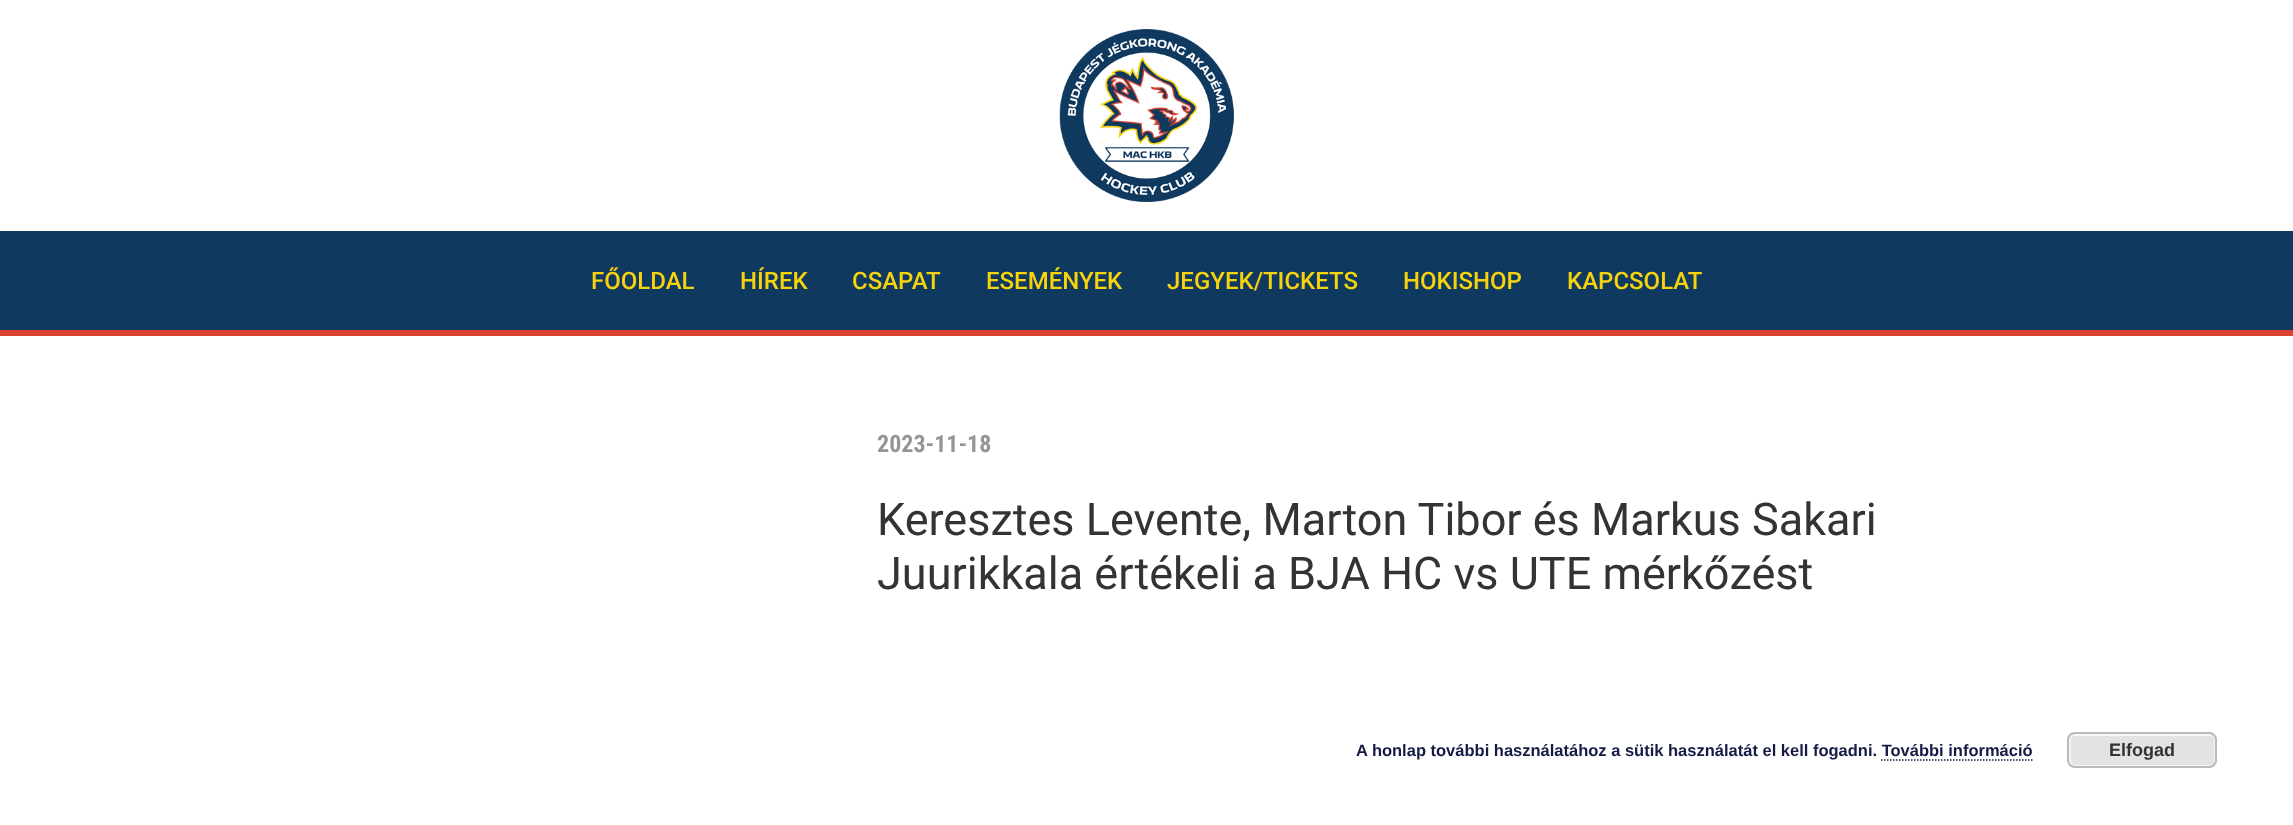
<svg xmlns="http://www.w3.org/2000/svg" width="2293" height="825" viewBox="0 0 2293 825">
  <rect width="100%" height="100%" fill="rgb(255,255,255)"/>
  <image x="1059" y="29" width="175" height="173" href="pic1.png"/>
  <rect x="0" y="231" width="2293" height="99" fill="rgb(15,57,95)"/>
  <rect x="0" y="330" width="2293" height="6" fill="rgb(219,66,47)"/>
  <g font-family="Roboto" font-size="24" font-weight="500" fill="rgb(246,211,12)">
    <text x="591" y="289">FŐOLDAL</text>
    <text x="740" y="289">HÍREK</text>
    <text x="852" y="289">CSAPAT</text>
    <text x="986" y="289">ESEMÉNYEK</text>
    <text x="1167" y="289">JEGYEK/TICKETS</text>
    <text x="1403" y="289">HOKISHOP</text>
    <text x="1567" y="289">KAPCSOLAT</text>
  </g>
  <text x="877" y="452" font-family="Roboto Condensed" font-size="24" font-weight="bold" fill="rgb(149,149,149)">2023-11-18</text>
  <g font-family="Roboto" font-size="45" fill="rgb(51,51,51)">
    <text>
      <tspan x="877" y="535">Keresztes Levente, Marton Tibor és Markus Sakari</tspan>
      <tspan x="877" y="589">Juurikkala értékeli a BJA HC vs UTE mérkőzést</tspan>
    </text>
  </g>
  <text x="1356" y="756" font-family="Liberation Sans" font-size="16.5" font-weight="bold" fill="rgb(21,27,68)">A honlap további használatához a sütik használatát el kell fogadni. További információ</text>
  <rect x="2067" y="732" width="150" height="36" rx="8" fill="rgb(227,227,227)"/>
  <rect x="2070" y="735" width="145" height="31" rx="5" fill="none" stroke="rgb(246,246,246)" stroke-width="2"/>
  <rect x="2068" y="733" width="148" height="34" rx="7" fill="none" stroke="rgb(187,187,187)" stroke-width="2"/>
  <text x="2109" y="756" font-family="Liberation Sans" font-size="18" font-weight="bold" fill="rgb(51,51,51)">Elfogad</text>
  <path d="M1881 760H2032.5" fill="none" stroke="rgb(21,27,68)" stroke-width="1.5" stroke-dasharray="1.5 1.5"/>
</svg>
